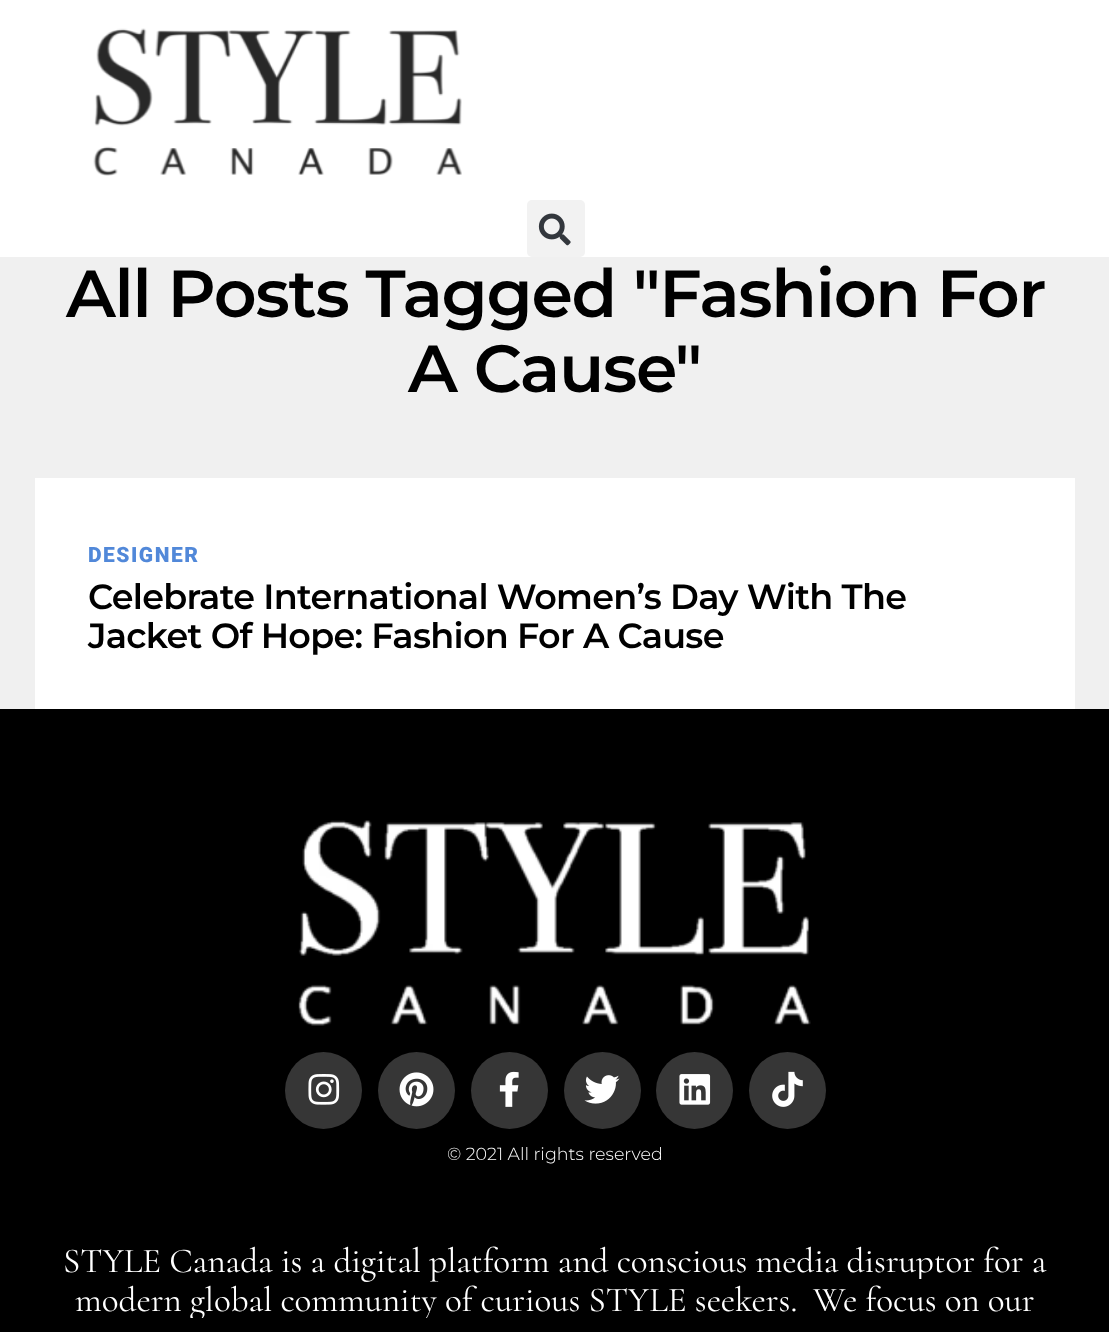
<svg xmlns="http://www.w3.org/2000/svg" width="1109" height="1332" viewBox="0 0 1109 1332">
  <rect width="100%" height="100%" fill="rgb(240,240,240)"/>
  <rect x="0" y="0" width="1109" height="257" fill="rgb(255,255,255)"/>
  <image x="93" y="28" width="369" height="148" href="pic1.png"/>
  <rect x="527" y="200" width="58" height="57" rx="5" fill="rgb(242,242,242)"/>
  <image x="538" y="213" width="33" height="33" href="pic2.png"/>
  <g font-family="Montserrat" font-size="66.6" font-weight="600" letter-spacing="-1.3" fill="rgb(0,0,0)">
    <text x="66" y="317">All Posts Tagged "Fashion For</text>
    <text x="408" y="392">A Cause"</text>
  </g>
  <rect x="35" y="478" width="1040" height="231" fill="rgb(255,255,255)"/>
  <text x="88" y="562" font-family="Roboto" font-size="21" font-weight="900" letter-spacing="1.5" fill="rgb(81,136,217)">DESIGNER</text>
  <g font-family="Montserrat" font-size="35" font-weight="600" letter-spacing="-0.7" fill="rgb(0,0,0)">
    <text>
      <tspan x="88" y="609">Celebrate International Women’s Day With The</tspan>
      <tspan x="88" y="648">Jacket Of Hope: Fashion For A Cause</tspan>
    </text>
  </g>
  <rect x="0" y="709" width="1109" height="623" fill="rgb(0,0,0)"/>
  <image x="298" y="820" width="513" height="206" href="pic3.png"/>
  <circle cx="323.5" cy="1090.5" r="38.5" fill="rgb(54,54,54)"/>
  <image x="308" y="1074" width="32" height="31" href="pic4.png"/>
  <circle cx="416.5" cy="1090.5" r="38.5" fill="rgb(54,54,54)"/>
  <image x="399" y="1072" width="35" height="35" href="pic5.png"/>
  <circle cx="509.5" cy="1090.5" r="38.5" fill="rgb(54,54,54)"/>
  <image x="499" y="1071" width="20" height="36" href="pic6.png"/>
  <circle cx="602.5" cy="1090.5" r="38.5" fill="rgb(54,54,54)"/>
  <image x="584" y="1075" width="36" height="29" href="pic7.png"/>
  <circle cx="694.5" cy="1090.5" r="38.5" fill="rgb(54,54,54)"/>
  <image x="679" y="1074" width="32" height="31" href="pic8.png"/>
  <circle cx="787.5" cy="1090.5" r="38.5" fill="rgb(54,54,54)"/>
  <image x="772" y="1071" width="31" height="36" href="pic9.png"/>
  <text x="447" y="1160" font-family="Montserrat" font-size="17.5" font-weight="300" fill="rgb(255,255,255)">© 2021 All rights reserved</text>
  <g font-family="Cormorant" font-size="35" fill="rgb(255,255,255)">
    <text x="63" y="1272">STYLE Canada is a digital platform and conscious media disruptor for a</text>
    <text x="75" y="1311">modern global community of curious STYLE seekers.</text>
    <text x="813" y="1311">We focus on our</text>
  </g>
  <rect x="917" y="1279" width="8" height="3" fill="rgb(0,0,0)"/>
  <rect x="190" y="1318" width="237" height="3" fill="rgb(0,0,0)"/>
</svg>
